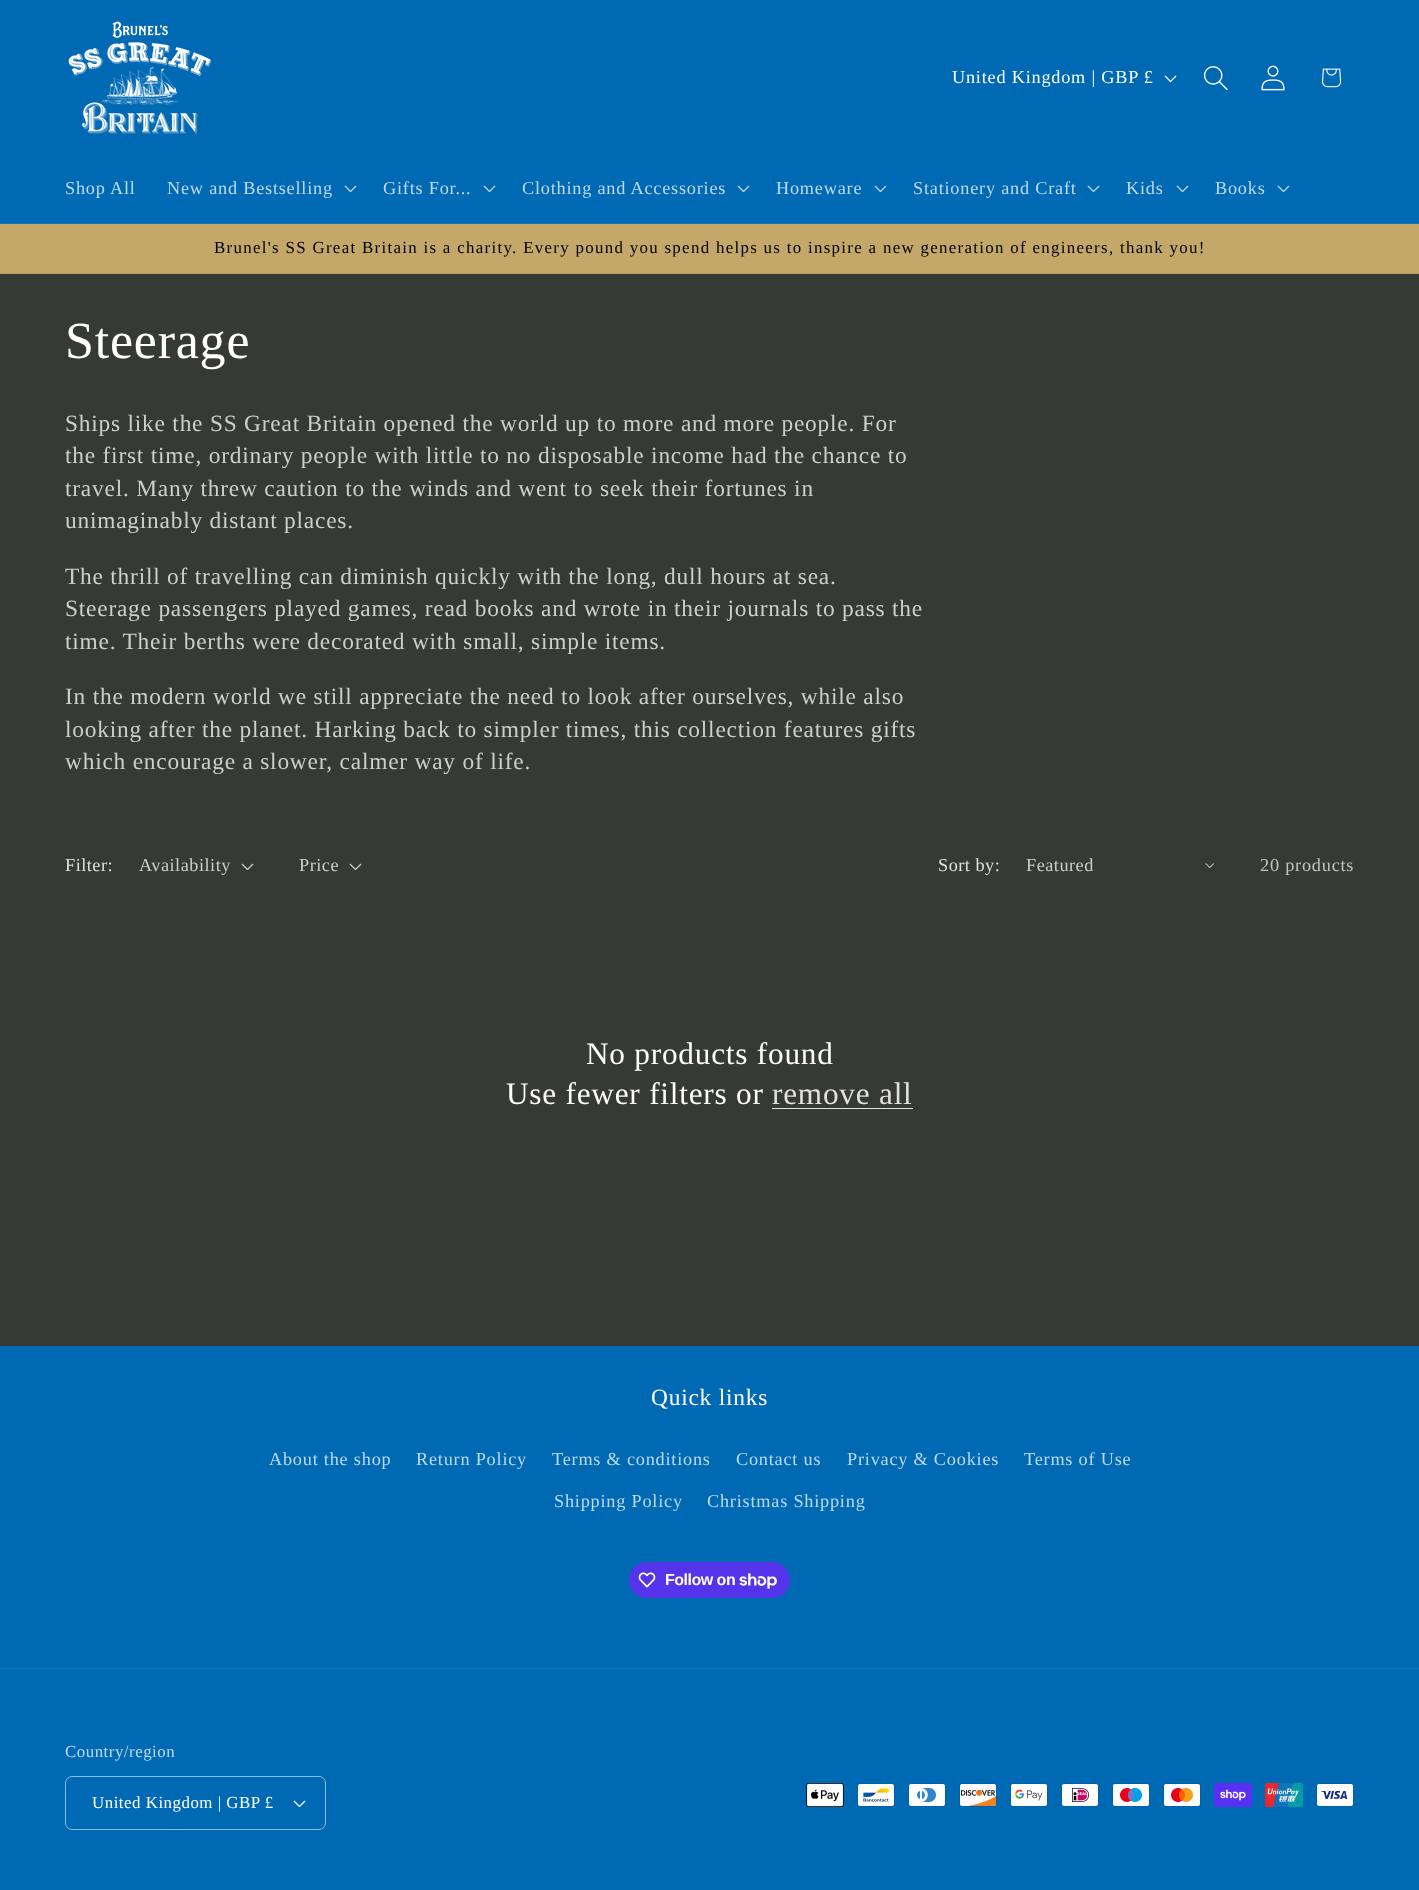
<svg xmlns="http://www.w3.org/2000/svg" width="1419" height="1890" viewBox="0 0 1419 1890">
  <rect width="100%" height="100%" fill="rgb(55,57,53)"/>
  <rect x="0" y="0" width="1419" height="223" fill="rgb(0,105,179)"/>
  <rect x="0" y="223" width="1419" height="1" fill="rgb(20,117,185)"/>
  <image x="68" y="21" width="144" height="114" href="pic1.png"/>
  <text x="952" y="83" font-family="Liberation Serif" font-size="18.25" letter-spacing="0.78" fill="rgb(255,255,255)">United Kingdom | GBP £</text>
  <image x="1164" y="75" width="13" height="8" href="pic2.png"/>
  <image x="1203" y="66" width="25" height="25" href="pic3.png"/>
  <image x="1261" y="65" width="24" height="26" href="pic4.png"/>
  <image x="1322" y="68" width="20" height="20" href="pic5.png"/>
  <g font-family="Liberation Serif" font-size="18.25" letter-spacing="0.78" fill="rgb(191,218,236)">
    <text x="65" y="194">Shop All</text>
    <text x="167" y="194">New and Bestselling</text>
  </g>
  <image x="344" y="185" width="13" height="8" href="pic6.png"/>
  <text x="383" y="194" font-family="Liberation Serif" font-size="18.25" letter-spacing="0.78" fill="rgb(191,218,236)">Gifts For...</text>
  <image x="483" y="185" width="13" height="8" href="pic6.png"/>
  <text x="522" y="194" font-family="Liberation Serif" font-size="18.25" letter-spacing="0.78" fill="rgb(191,218,236)">Clothing and Accessories</text>
  <image x="737" y="185" width="13" height="8" href="pic6.png"/>
  <text x="776" y="194" font-family="Liberation Serif" font-size="18.25" letter-spacing="0.78" fill="rgb(191,218,236)">Homeware</text>
  <image x="874" y="185" width="13" height="8" href="pic6.png"/>
  <text x="913" y="194" font-family="Liberation Serif" font-size="18.25" letter-spacing="0.78" fill="rgb(191,218,236)">Stationery and Craft</text>
  <image x="1087" y="185" width="13" height="8" href="pic6.png"/>
  <text x="1126" y="194" font-family="Liberation Serif" font-size="18.25" letter-spacing="0.78" fill="rgb(191,218,236)">Kids</text>
  <image x="1176" y="185" width="13" height="8" href="pic6.png"/>
  <text x="1215" y="194" font-family="Liberation Serif" font-size="18.25" letter-spacing="0.78" fill="rgb(191,218,236)">Books</text>
  <image x="1277" y="185" width="13" height="8" href="pic6.png"/>
  <rect x="0" y="224" width="1419" height="49" fill="rgb(195,168,106)"/>
  <rect x="0" y="273" width="1419" height="1" fill="rgb(179,155,98)"/>
  <text x="214" y="253" font-family="Liberation Serif" font-size="16.9" letter-spacing="1.3" fill="rgb(0,0,0)">Brunel's SS Great Britain is a charity. Every pound you spend helps us to inspire a new generation of engineers, thank you!</text>
  <text x="65" y="358" font-family="Liberation Serif" font-size="52" letter-spacing="0.78" fill="rgb(255,255,255)">Steerage</text>
  <g font-family="Liberation Serif" font-size="23.4" letter-spacing="0.78" fill="rgb(205,206,205)">
    <text>
      <tspan x="65" y="431">Ships like the SS Great Britain opened the world up to more and more people. For</tspan>
      <tspan x="65" y="463">the first time, ordinary people with little to no disposable income had the chance to</tspan>
      <tspan x="65" y="496">travel. Many threw caution to the winds and went to seek their fortunes in</tspan>
      <tspan x="65" y="528">unimaginably distant places.</tspan>
    </text>
    <text>
      <tspan x="65" y="584">The thrill of travelling can diminish quickly with the long, dull hours at sea.</tspan>
      <tspan x="65" y="616">Steerage passengers played games, read books and wrote in their journals to pass the</tspan>
      <tspan x="65" y="649">time. Their berths were decorated with small, simple items.</tspan>
    </text>
    <text>
      <tspan x="65" y="704">In the modern world we still appreciate the need to look after ourselves, while also</tspan>
      <tspan x="65" y="737">looking after the planet. Harking back to simpler times, this collection features gifts</tspan>
      <tspan x="65" y="769">which encourage a slower, calmer way of life.</tspan>
    </text>
  </g>
  <text x="65" y="871" font-family="Liberation Serif" font-size="18.25" letter-spacing="0.5" fill="rgb(225,225,225)">Filter:</text>
  <text x="139" y="871" font-family="Liberation Serif" font-size="18.25" letter-spacing="0.5" fill="rgb(205,206,205)">Availability</text>
  <image x="241" y="863" width="13" height="7" href="pic7.png"/>
  <text x="299" y="871" font-family="Liberation Serif" font-size="18.25" letter-spacing="0.5" fill="rgb(205,206,205)">Price</text>
  <image x="349" y="863" width="13" height="7" href="pic7.png"/>
  <text x="938" y="871" font-family="Liberation Serif" font-size="18.25" letter-spacing="0.5" fill="rgb(225,225,225)">Sort by:</text>
  <text x="1026" y="871" font-family="Liberation Serif" font-size="18.25" letter-spacing="0.5" fill="rgb(205,206,205)">Featured</text>
  <image x="1205" y="863" width="9" height="5" href="pic8.png"/>
  <text x="1260" y="871" font-family="Liberation Serif" font-size="18.25" letter-spacing="0.78" fill="rgb(195,196,194)">20 products</text>
  <g font-family="Liberation Serif" font-size="31.25" letter-spacing="0.78" fill="rgb(255,255,255)">
    <text x="586" y="1064">No products found</text>
    <text x="506" y="1104">Use fewer filters or</text>
  </g>
  <text x="772" y="1104" font-family="Liberation Serif" font-size="31.25" letter-spacing="0.78" fill="rgb(225,225,225)">remove all</text>
  <rect x="772" y="1108" width="141" height="1" fill="rgb(225,225,225)"/>
  <rect x="0" y="1346" width="1419" height="544" fill="rgb(0,105,179)"/>
  <text x="651" y="1405" font-family="Liberation Serif" font-size="23.4" letter-spacing="0.78" fill="rgb(255,255,255)">Quick links</text>
  <g font-family="Liberation Serif" font-size="18.25" letter-spacing="0.78" fill="rgb(191,218,236)">
    <text x="269" y="1465">About the shop</text>
    <text x="416" y="1465">Return Policy</text>
    <text x="552" y="1465">Terms &amp; conditions</text>
    <text x="736" y="1465">Contact us</text>
    <text x="847" y="1465">Privacy &amp; Cookies</text>
    <text x="1024" y="1465">Terms of Use</text>
    <text x="554" y="1507">Shipping Policy</text>
    <text x="707" y="1507">Christmas Shipping</text>
  </g>
  <rect x="629" y="1562" width="161" height="36" rx="18" fill="rgb(84,51,235)"/>
  <image x="638" y="1572" width="18" height="16" href="pic9.png"/>
  <text x="665" y="1585" font-family="Liberation Sans" font-size="16" font-weight="bold" letter-spacing="-0.5" fill="rgb(255,255,255)">Follow on</text>
  <image x="739" y="1573" width="38" height="16" href="pic10.png"/>
  <rect x="0" y="1668" width="1419" height="1" fill="rgb(20,117,185)"/>
  <text x="65" y="1757" font-family="Liberation Serif" font-size="16.9" letter-spacing="0.5" fill="rgb(191,218,236)">Country/region</text>
  <image x="293" y="1800" width="13" height="8" href="pic2.png"/>
  <rect x="65.5" y="1776.5" width="260" height="53" rx="6.5" fill="none" stroke="rgb(140,188,221)"/>
  <text x="92" y="1808" font-family="Liberation Serif" font-size="16.9" letter-spacing="0.5" fill="rgb(255,255,255)">United Kingdom | GBP £</text>
  <image x="806" y="1783" width="38" height="24" href="pic11.png"/>
  <image x="857" y="1783" width="38" height="24" href="pic12.png"/>
  <image x="908" y="1783" width="38" height="24" href="pic13.png"/>
  <image x="959" y="1783" width="38" height="24" href="pic14.png"/>
  <image x="1010" y="1783" width="38" height="24" href="pic15.png"/>
  <image x="1061" y="1783" width="38" height="24" href="pic16.png"/>
  <image x="1112" y="1783" width="38" height="24" href="pic17.png"/>
  <image x="1163" y="1783" width="38" height="24" href="pic18.png"/>
  <image x="1214" y="1783" width="38" height="24" href="pic19.png"/>
  <image x="1265" y="1783" width="38" height="24" href="pic20.png"/>
  <image x="1316" y="1783" width="38" height="24" href="pic21.png"/>
</svg>
